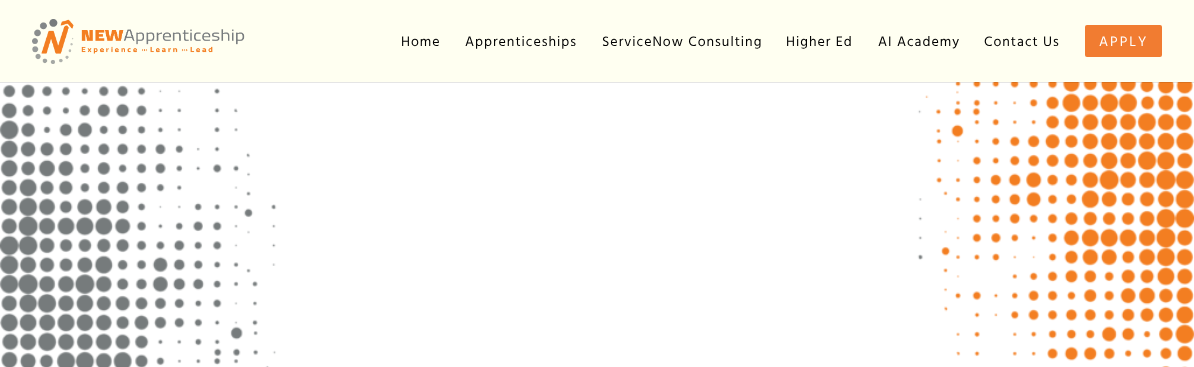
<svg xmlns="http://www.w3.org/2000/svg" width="1194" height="367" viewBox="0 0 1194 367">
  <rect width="100%" height="100%" fill="rgb(255,255,255)"/>
  <image x="0" y="82" width="1194" height="285" href="pic2.png"/>
  <rect x="0" y="82" width="1194" height="1" fill="rgba(0,0,0,0.1)"/>
  <rect x="0" y="0" width="1194" height="82" fill="rgb(255,255,241)"/>
  <image x="32" y="19" width="213" height="45" href="pic1.png"/>
  <g font-family="Hind Vadodara" font-size="14" letter-spacing="1" fill="rgb(0,0,0)">
    <text x="401" y="46">Home</text>
    <text x="465" y="46">Apprenticeships</text>
    <text x="602" y="46">ServiceNow Consulting</text>
    <text x="786" y="46">Higher Ed</text>
    <text x="878" y="46">AI Academy</text>
    <text x="984" y="46">Contact Us</text>
  </g>
  <rect x="1085" y="25" width="77" height="32" rx="2" fill="rgb(241,124,49)"/>
  <text x="1099" y="46" font-family="Hind Vadodara" font-size="14" letter-spacing="2" fill="rgb(255,255,255)">APPLY</text>
</svg>
